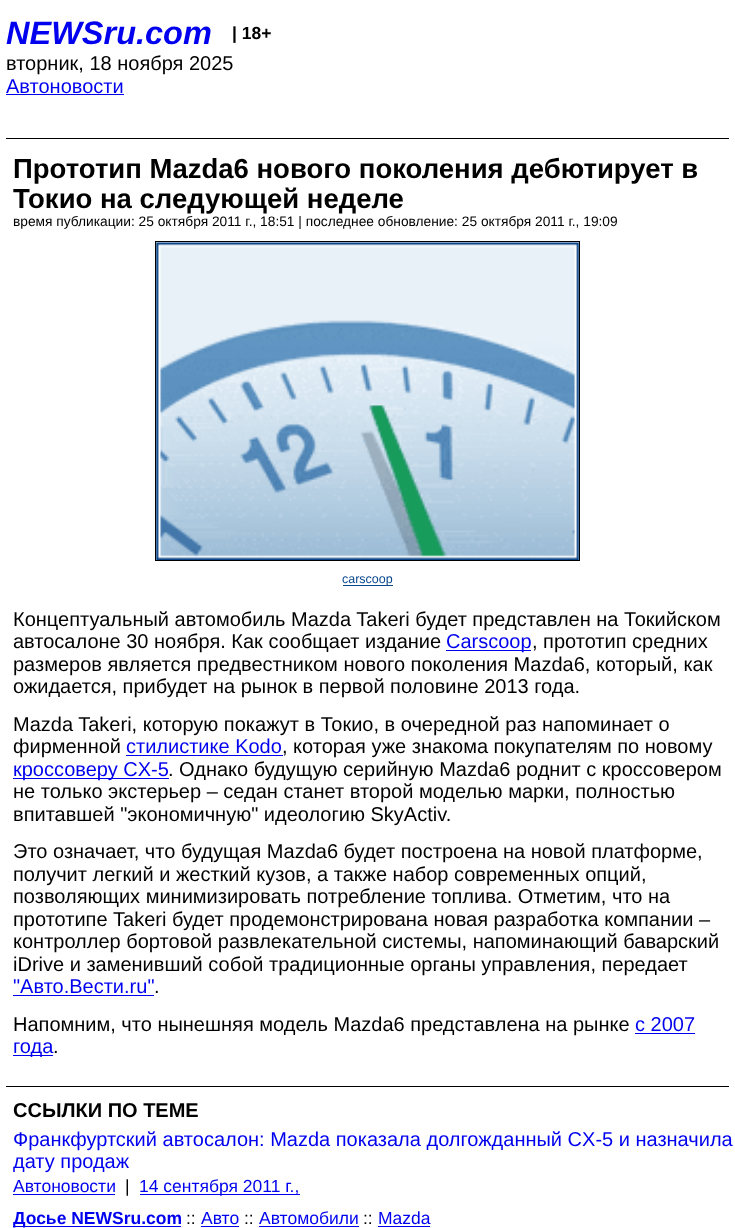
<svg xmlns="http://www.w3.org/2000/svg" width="735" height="1228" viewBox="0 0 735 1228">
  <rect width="100%" height="100%" fill="rgb(255,255,255)"/>
  <rect x="6" y="138" width="723" height="1" fill="rgb(0,0,0)"/>
  <text x="6" y="44" font-family="Liberation Sans" font-size="32.5" font-weight="bold" font-style="italic" fill="rgb(0,0,238)">NEWSru.com</text>
  <text x="232" y="39" font-family="Liberation Sans" font-size="17.5" font-weight="bold" fill="rgb(0,0,0)">| 18+</text>
  <text x="6" y="70" font-family="Liberation Sans" font-size="20" fill="rgb(0,0,0)">вторник, 18 ноября 2025</text>
  <text x="6" y="93" font-family="Liberation Sans" font-size="20" fill="rgb(0,0,238)">Автоновости</text>
  <rect x="6" y="94" width="118" height="1" fill="rgb(0,0,238)"/>
  <rect x="6" y="1086" width="723" height="1" fill="rgb(0,0,0)"/>
  <g font-family="Liberation Sans" font-size="27.5" font-weight="bold" fill="rgb(0,0,0)">
    <text>
      <tspan x="13" y="178">Прототип Mazda6 нового поколения дебютирует в</tspan>
      <tspan x="13" y="208">Токио на следующей неделе</tspan>
    </text>
  </g>
  <text x="13" y="226" font-family="Liberation Sans" font-size="13.75" fill="rgb(0,0,0)">время публикации: 25 октября 2011 г., 18:51 | последнее обновление: 25 октября 2011 г., 19:09</text>
  <rect x="155.5" y="241.5" width="424" height="319" fill="none" stroke="rgb(0,0,0)"/>
  <image x="156" y="242" width="423" height="318" href="pic1.png"/>
  <rect x="343" y="585" width="50" height="1" fill="rgb(9,72,143)"/>
  <text x="342" y="583" font-family="Liberation Sans" font-size="12.5" fill="rgb(9,72,143)">carscoop</text>
  <g font-family="Liberation Sans" font-size="20" fill="rgb(0,0,0)">
    <text>
      <tspan x="13" y="626">Концептуальный автомобиль Mazda Takeri будет представлен на Токийском</tspan>
      <tspan x="13" y="648">автосалоне 30 ноября. Как сообщает издание</tspan>
    </text>
  </g>
  <rect x="446" y="650" width="85" height="1" fill="rgb(0,0,238)"/>
  <text x="446" y="648" font-family="Liberation Sans" font-size="20" fill="rgb(0,0,238)">Carscoop</text>
  <g font-family="Liberation Sans" font-size="20" fill="rgb(0,0,0)">
    <text x="532" y="648">, прототип средних</text>
    <text>
      <tspan x="13" y="671">размеров является предвестником нового поколения Mazda6, который, как</tspan>
      <tspan x="13" y="693">ожидается, прибудет на рынок в первой половине 2013 года.</tspan>
      <tspan x="13" y="731">Mazda Takeri, которую покажут в Токио, в очередной раз напоминает о</tspan>
      <tspan x="13" y="753">фирменной</tspan>
    </text>
  </g>
  <text x="126" y="753" font-family="Liberation Sans" font-size="20" fill="rgb(0,0,238)">стилистике Kodo</text>
  <rect x="126" y="755" width="157" height="1" fill="rgb(0,0,238)"/>
  <text x="282" y="753" font-family="Liberation Sans" font-size="20" fill="rgb(0,0,0)">, которая уже знакома покупателям по новому</text>
  <rect x="13" y="778" width="156" height="1" fill="rgb(0,0,238)"/>
  <text x="13" y="776" font-family="Liberation Sans" font-size="20" fill="rgb(0,0,238)">кроссоверу CX-5</text>
  <g font-family="Liberation Sans" font-size="20" fill="rgb(0,0,0)">
    <text x="168" y="776">. Однако будущую серийную Mazda6 роднит с кроссовером</text>
    <text>
      <tspan x="13" y="798">не только экстерьер – седан станет второй моделью марки, полностью</tspan>
      <tspan x="13" y="821">впитавшей "экономичную" идеологию SkyActiv.</tspan>
      <tspan x="13" y="858">Это означает, что будущая Mazda6 будет построена на новой платформе,</tspan>
      <tspan x="13" y="881">получит легкий и жесткий кузов, а также набор современных опций,</tspan>
      <tspan x="13" y="903">позволяющих минимизировать потребление топлива. Отметим, что на</tspan>
      <tspan x="13" y="926">прототипе Takeri будет продемонстрирована новая разработка компании –</tspan>
      <tspan x="13" y="948">контроллер бортовой развлекательной системы, напоминающий баварский</tspan>
      <tspan x="13" y="971">iDrive и заменивший собой традиционные органы управления, передает</tspan>
    </text>
  </g>
  <text x="13" y="993" font-family="Liberation Sans" font-size="20" fill="rgb(0,0,238)">"Авто.Вести.ru"</text>
  <rect x="13" y="995" width="141" height="1" fill="rgb(0,0,238)"/>
  <g font-family="Liberation Sans" font-size="20" fill="rgb(0,0,0)">
    <text x="154" y="993">.</text>
    <text x="13" y="1031">Напомним, что нынешняя модель Mazda6 представлена на рынке</text>
  </g>
  <text x="635" y="1031" font-family="Liberation Sans" font-size="20" fill="rgb(0,0,238)">с 2007</text>
  <rect x="635" y="1033" width="60" height="1" fill="rgb(0,0,238)"/>
  <rect x="13" y="1055" width="40" height="1" fill="rgb(0,0,238)"/>
  <text x="13" y="1053" font-family="Liberation Sans" font-size="20" fill="rgb(0,0,238)">года</text>
  <text x="53" y="1053" font-family="Liberation Sans" font-size="20" fill="rgb(0,0,0)">.</text>
  <text x="13" y="1117" font-family="Liberation Sans" font-size="20" font-weight="bold" fill="rgb(0,0,0)">ССЫЛКИ ПО ТЕМЕ</text>
  <g font-family="Liberation Sans" font-size="20" fill="rgb(0,0,238)">
    <text>
      <tspan x="13" y="1146">Франкфуртский автосалон: Mazda показала долгожданный CX-5 и назначила</tspan>
      <tspan x="13" y="1168">дату продаж</tspan>
    </text>
  </g>
  <text x="13" y="1192" font-family="Liberation Sans" font-size="17.5" fill="rgb(0,0,238)">Автоновости</text>
  <rect x="13" y="1194" width="102" height="1" fill="rgb(0,0,238)"/>
  <text x="125" y="1192" font-family="Liberation Sans" font-size="17.5" fill="rgb(0,0,0)">|</text>
  <rect x="140" y="1194" width="160" height="1" fill="rgb(0,0,238)"/>
  <text x="139" y="1192" font-family="Liberation Sans" font-size="17.5" fill="rgb(0,0,238)">14 сентября 2011 г.,</text>
  <rect x="13" y="1226" width="168" height="1" fill="rgb(0,0,238)"/>
  <text x="13" y="1224" font-family="Liberation Sans" font-size="17.5" font-weight="bold" fill="rgb(0,0,238)">Досье NEWSru.com</text>
  <text x="186" y="1224" font-family="Liberation Sans" font-size="17.5" fill="rgb(0,0,0)">::</text>
  <text x="201" y="1224" font-family="Liberation Sans" font-size="17.5" fill="rgb(0,0,238)">Авто</text>
  <rect x="201" y="1226" width="38" height="1" fill="rgb(0,0,238)"/>
  <text x="244" y="1224" font-family="Liberation Sans" font-size="17.5" fill="rgb(0,0,0)">::</text>
  <text x="259" y="1224" font-family="Liberation Sans" font-size="17.5" fill="rgb(0,0,238)">Автомобили</text>
  <rect x="259" y="1226" width="100" height="1" fill="rgb(0,0,238)"/>
  <text x="363" y="1224" font-family="Liberation Sans" font-size="17.5" fill="rgb(0,0,0)">::</text>
  <text x="378" y="1224" font-family="Liberation Sans" font-size="17.5" fill="rgb(0,0,238)">Mazda</text>
  <rect x="378" y="1226" width="52" height="1" fill="rgb(0,0,238)"/>
</svg>
